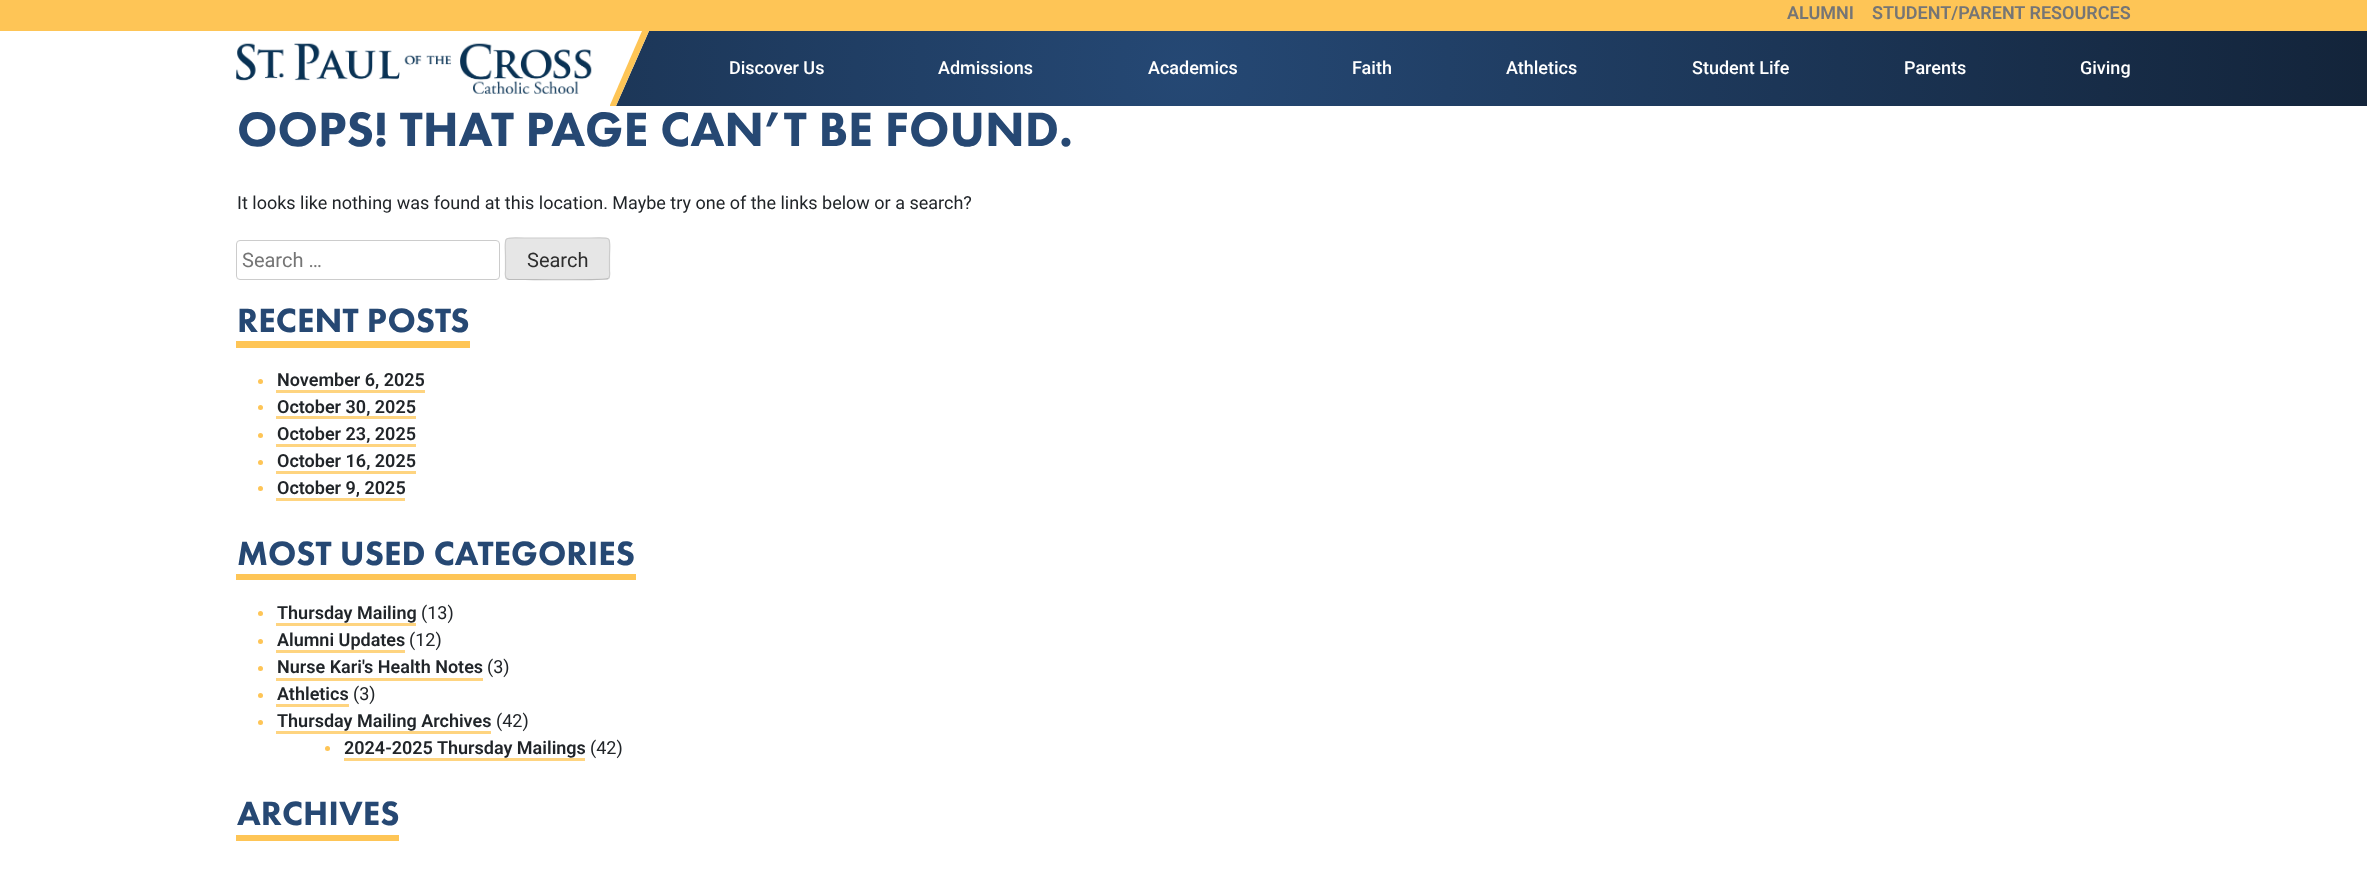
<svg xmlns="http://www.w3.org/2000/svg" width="2367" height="875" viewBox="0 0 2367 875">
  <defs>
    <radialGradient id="g1" gradientUnits="userSpaceOnUse" cx="1184" cy="69" r="1184"><stop offset="0" stop-color="rgb(37,72,116)"/><stop offset="1" stop-color="rgb(19,36,58)"/></radialGradient>
  </defs>
  <rect width="100%" height="100%" fill="rgb(255,255,255)"/>
  <rect x="0" y="0" width="2367" height="31" fill="rgb(254,197,86)"/>
  <g font-family="Roboto" font-size="18" font-weight="600" fill="rgb(117,117,117)">
    <text x="1787" y="19">ALUMNI</text>
    <text x="1872" y="19">STUDENT/PARENT RESOURCES</text>
  </g>
  <rect x="616" y="31" width="1751" height="75" fill="url(#g1)"/>
  <path d="M0 31V106H616L649 31Z" fill="rgb(255,255,255)"/>
  <image x="236" y="43" width="356" height="51" href="pic1.png"/>
  <path d="M610 106H616L649 31H642L610 105Z" fill="rgb(254,197,86)"/>
  <g font-family="Roboto" font-size="18" font-weight="500" fill="rgb(255,255,255)">
    <text x="729" y="74">Discover Us</text>
    <text x="938" y="74">Admissions</text>
    <text x="1148" y="74">Academics</text>
    <text x="1352" y="74">Faith</text>
    <text x="1506" y="74">Athletics</text>
    <text x="1692" y="74">Student Life</text>
    <text x="1904" y="74">Parents</text>
    <text x="2080" y="74">Giving</text>
  </g>
  <text x="237" y="146" font-family="Futura PT" font-size="50" font-weight="900" fill="rgb(38,72,115)">OOPS! THAT PAGE CAN’T BE FOUND.</text>
  <text x="237" y="209" font-family="Roboto" font-size="18" fill="rgb(33,37,41)">It looks like nothing was found at this location. Maybe try one of the links below or a search?</text>
  <rect x="236.5" y="240.5" width="263" height="39" rx="3.5" fill="none" stroke="rgb(204,204,204)"/>
  <text x="242" y="267" font-family="Roboto" font-size="20" fill="rgb(117,117,117)">Search …</text>
  <rect x="505" y="238" width="105" height="42" rx="4" fill="rgb(230,230,230)"/>
  <path d="M608.5 278.5H608C606 280.5 534 279.5 525 279.5H509L506.5 278.5" fill="none" stroke="rgb(187,187,187)" stroke-width="1.2"/>
  <path d="M506.5 278.5C504.5 276.5 505.5 272 505.5 270.5V259C505.5 234.5 501 238 525 238H590C614 238 609.5 234.5 609.5 259V270.5C609.5 272 610.5 276.5 608.5 278.5" fill="none" stroke="rgb(204,204,204)" stroke-width="1.2"/>
  <text x="527" y="267" font-family="Roboto" font-size="20" fill="rgb(46,46,46)">Search</text>
  <rect x="236" y="341" width="234" height="7" fill="rgb(254,197,86)"/>
  <text x="237" y="332" font-family="Futura PT" font-size="35" font-weight="900" fill="rgb(38,72,115)">RECENT POSTS</text>
  <circle cx="260.5" cy="381.5" r="2.5" fill="rgb(254,197,86)"/>
  <text x="277" y="386" font-family="Roboto" font-size="18" font-weight="600" fill="rgb(33,37,41)">November 6, 2025</text>
  <rect x="276" y="390" width="149" height="3" fill="rgb(254,212,128)"/>
  <circle cx="260.5" cy="407.5" r="2.5" fill="rgb(254,197,86)"/>
  <text x="277" y="413" font-family="Roboto" font-size="18" font-weight="600" fill="rgb(33,37,41)">October 30, 2025</text>
  <rect x="276" y="416" width="140" height="3" fill="rgb(254,212,128)"/>
  <circle cx="260.5" cy="435.5" r="2.5" fill="rgb(254,197,86)"/>
  <text x="277" y="440" font-family="Roboto" font-size="18" font-weight="600" fill="rgb(33,37,41)">October 23, 2025</text>
  <rect x="276" y="444" width="140" height="3" fill="rgb(254,212,128)"/>
  <circle cx="260.5" cy="462.5" r="2.5" fill="rgb(254,197,86)"/>
  <text x="277" y="467" font-family="Roboto" font-size="18" font-weight="600" fill="rgb(33,37,41)">October 16, 2025</text>
  <rect x="276" y="471" width="140" height="3" fill="rgb(254,212,128)"/>
  <circle cx="260.5" cy="488.5" r="2.5" fill="rgb(254,197,86)"/>
  <text x="277" y="494" font-family="Roboto" font-size="18" font-weight="600" fill="rgb(33,37,41)">October 9, 2025</text>
  <rect x="276" y="498" width="129" height="3" fill="rgb(254,212,128)"/>
  <rect x="236" y="574" width="400" height="6" fill="rgb(254,197,86)"/>
  <text x="237" y="565" font-family="Futura PT" font-size="35" font-weight="900" fill="rgb(38,72,115)">MOST USED CATEGORIES</text>
  <circle cx="260.5" cy="613.5" r="2.5" fill="rgb(254,197,86)"/>
  <text x="277" y="619" font-family="Roboto" font-size="18" font-weight="600" fill="rgb(33,37,41)">Thursday Mailing</text>
  <rect x="276" y="623" width="140" height="3" fill="rgb(254,212,128)"/>
  <text x="421" y="619" font-family="Roboto" font-size="18" fill="rgb(33,37,41)">(13)</text>
  <circle cx="260.5" cy="641.5" r="2.5" fill="rgb(254,197,86)"/>
  <text x="277" y="646" font-family="Roboto" font-size="18" font-weight="600" fill="rgb(33,37,41)">Alumni Updates</text>
  <rect x="276" y="650" width="129" height="3" fill="rgb(254,212,128)"/>
  <text x="409" y="646" font-family="Roboto" font-size="18" fill="rgb(33,37,41)">(12)</text>
  <circle cx="260.5" cy="668.5" r="2.5" fill="rgb(254,197,86)"/>
  <text x="277" y="673" font-family="Roboto" font-size="18" font-weight="600" fill="rgb(33,37,41)">Nurse Kari's Health Notes</text>
  <rect x="276" y="678" width="207" height="3" fill="rgb(254,212,128)"/>
  <text x="487" y="673" font-family="Roboto" font-size="18" fill="rgb(33,37,41)">(3)</text>
  <circle cx="260.5" cy="695.5" r="2.5" fill="rgb(254,197,86)"/>
  <text x="277" y="700" font-family="Roboto" font-size="18" font-weight="600" fill="rgb(33,37,41)">Athletics</text>
  <rect x="276" y="704" width="73" height="3" fill="rgb(254,212,128)"/>
  <text x="353" y="700" font-family="Roboto" font-size="18" fill="rgb(33,37,41)">(3)</text>
  <circle cx="260.5" cy="722.5" r="2.5" fill="rgb(254,197,86)"/>
  <text x="277" y="727" font-family="Roboto" font-size="18" font-weight="600" fill="rgb(33,37,41)">Thursday Mailing Archives</text>
  <rect x="276" y="731" width="215" height="3" fill="rgb(254,212,128)"/>
  <text x="496" y="727" font-family="Roboto" font-size="18" fill="rgb(33,37,41)">(42)</text>
  <circle cx="327.5" cy="748.5" r="2.5" fill="rgb(254,197,86)"/>
  <text x="344" y="754" font-family="Roboto" font-size="18" font-weight="600" fill="rgb(33,37,41)">2024-2025 Thursday Mailings</text>
  <rect x="344" y="758" width="241" height="3" fill="rgb(254,212,128)"/>
  <text x="590" y="754" font-family="Roboto" font-size="18" fill="rgb(33,37,41)">(42)</text>
  <rect x="236" y="835" width="163" height="6" fill="rgb(254,197,86)"/>
  <text x="237" y="825" font-family="Futura PT" font-size="35" font-weight="900" fill="rgb(38,72,115)">ARCHIVES</text>
</svg>
